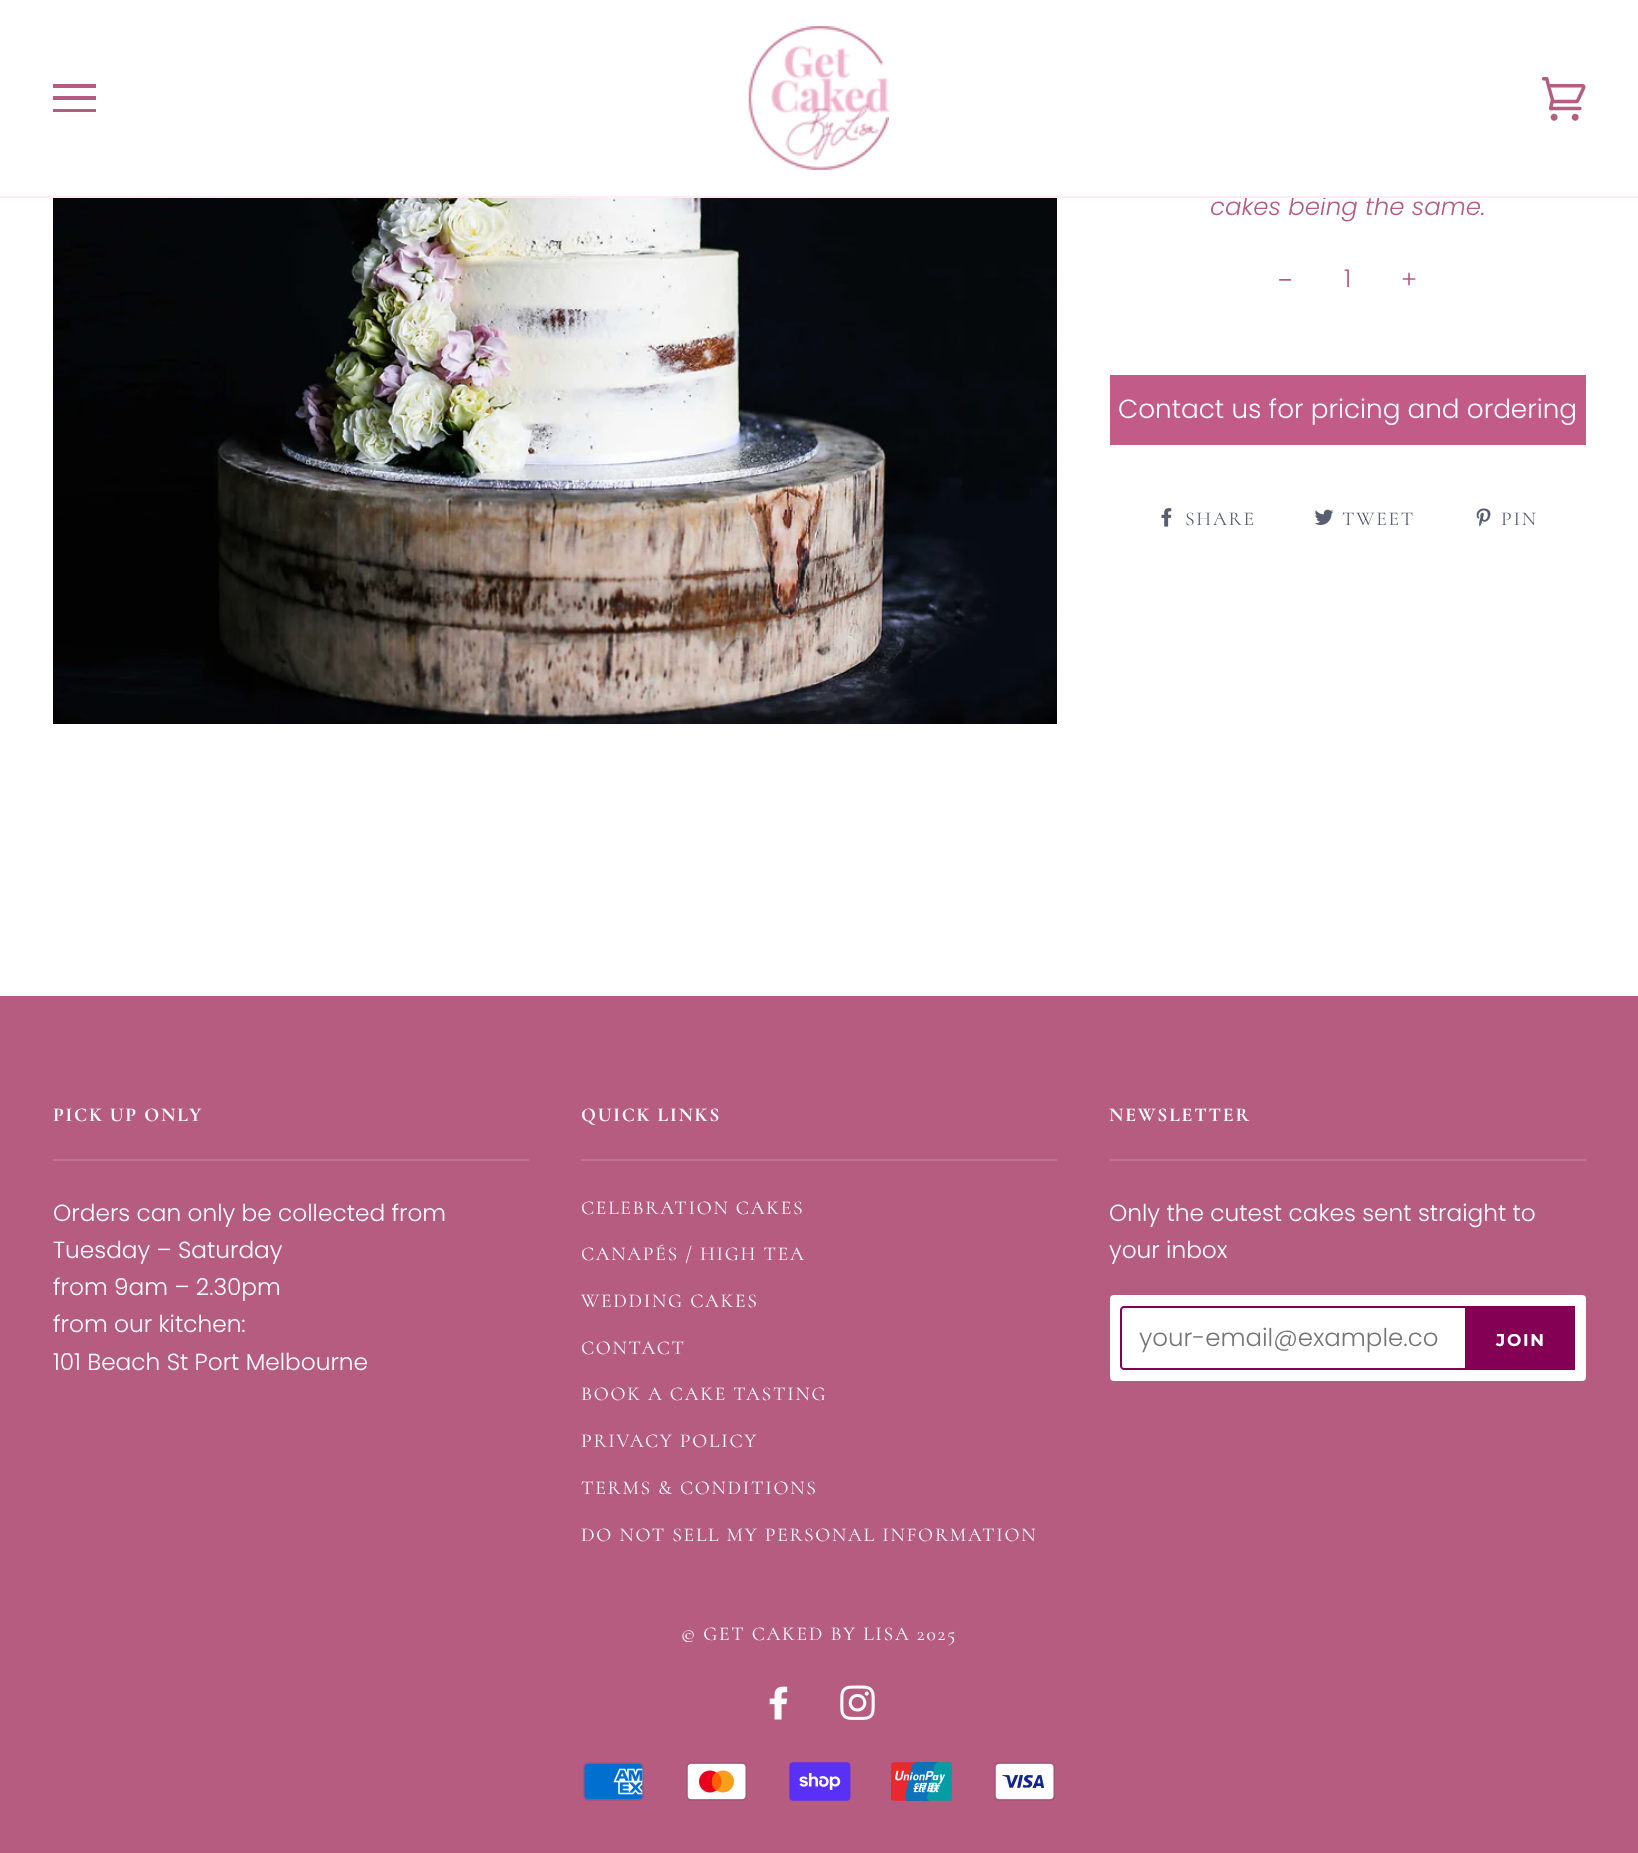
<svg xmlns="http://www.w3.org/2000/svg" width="1638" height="1853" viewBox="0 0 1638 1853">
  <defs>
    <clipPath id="clip1"><rect x="53" y="77" width="43" height="44"/></clipPath>
  </defs>
  <rect width="100%" height="100%" fill="rgb(255,255,255)"/>
  <text x="1210" y="215" font-family="Poppins" font-size="24.5" font-weight="300" font-style="italic" fill="rgb(181,92,128)">cakes being the same.</text>
  <rect x="0" y="196" width="1638" height="2" fill="rgb(255,235,244)"/>
  <g clip-path="url(#clip1)">
    <path d="M52 84H96V88H52ZM52 96H96V100H52ZM52 109H96V112H52Z" fill="rgb(181,92,128)"/>
  </g>
  <image x="748" y="26" width="141" height="144" href="pic1.png"/>
  <image x="1542" y="77" width="44" height="44" href="pic2.png"/>
  <image x="53" y="198" width="1004" height="526" href="pic3.png"/>
  <text x="1278" y="288" font-family="Liberation Sans" font-size="24.5" fill="rgb(181,92,128)">−</text>
  <g font-family="Poppins" font-size="24.5" font-weight="300" fill="rgb(181,92,128)">
    <text x="1344" y="287">1</text>
    <text x="1401" y="288">+</text>
  </g>
  <rect x="1110" y="375" width="476" height="70" fill="rgb(194,91,136)"/>
  <text x="1118" y="418" font-family="Poppins" font-size="26.25" font-weight="300" fill="rgb(255,255,255)">Contact us for pricing and ordering</text>
  <image x="1161" y="508" width="11" height="19" href="pic4.png"/>
  <text x="1185" y="525" font-family="Cormorant" font-size="19.6" letter-spacing="1.75" fill="rgb(88,94,113)">SHARE</text>
  <image x="1314" y="509" width="20" height="16" href="pic5.png"/>
  <text x="1342" y="525" font-family="Cormorant" font-size="19.6" letter-spacing="1.75" fill="rgb(88,94,113)">TWEET</text>
  <image x="1476" y="508" width="15" height="19" href="pic6.png"/>
  <text x="1501" y="525" font-family="Cormorant" font-size="19.6" letter-spacing="1.75" fill="rgb(88,94,113)">PIN</text>
  <rect x="0" y="996" width="1638" height="857" fill="rgb(181,92,128)"/>
  <text x="53" y="1121" font-family="Cormorant" font-size="19.6" font-weight="bold" letter-spacing="1.75" fill="rgb(255,255,255)">PICK UP ONLY</text>
  <rect x="53" y="1159" width="476" height="2" fill="rgb(192,116,147)"/>
  <g font-family="Poppins" font-size="23.25" font-weight="300" fill="rgb(255,255,255)">
    <text>
      <tspan x="53" y="1221">Orders can only be collected from</tspan>
      <tspan x="53" y="1258">Tuesday – Saturday</tspan>
      <tspan x="53" y="1295">from 9am – 2.30pm</tspan>
      <tspan x="53" y="1332">from our kitchen:</tspan>
      <tspan x="53" y="1370">101 Beach St Port Melbourne</tspan>
    </text>
  </g>
  <text x="581" y="1121" font-family="Cormorant" font-size="19.6" font-weight="bold" letter-spacing="1.75" fill="rgb(255,255,255)">QUICK LINKS</text>
  <rect x="581" y="1159" width="476" height="2" fill="rgb(192,116,147)"/>
  <g font-family="Cormorant" font-size="19.6" letter-spacing="1.75" fill="rgb(255,255,255)">
    <text x="581" y="1214">CELEBRATION CAKES</text>
    <text x="581" y="1260">CANAPÉS / HIGH TEA</text>
    <text x="581" y="1307">WEDDING CAKES</text>
    <text x="581" y="1354">CONTACT</text>
    <text x="581" y="1400">BOOK A CAKE TASTING</text>
    <text x="581" y="1447">PRIVACY POLICY</text>
    <text x="581" y="1494">TERMS &amp; CONDITIONS</text>
    <text x="581" y="1541">DO NOT SELL MY PERSONAL INFORMATION</text>
  </g>
  <text x="1109" y="1121" font-family="Cormorant" font-size="19.6" font-weight="bold" letter-spacing="1.75" fill="rgb(255,255,255)">NEWSLETTER</text>
  <rect x="1110" y="1159" width="476" height="2" fill="rgb(192,116,147)"/>
  <g font-family="Poppins" font-size="23.25" font-weight="300" fill="rgb(255,255,255)">
    <text>
      <tspan x="1109" y="1221">Only the cutest cakes sent straight to</tspan>
      <tspan x="1109" y="1258">your inbox</tspan>
    </text>
  </g>
  <rect x="1111" y="1296" width="474" height="84" rx="3" fill="rgb(255,255,255)" stroke="rgb(255,255,255)" stroke-width="2"/>
  <path d="M1124 1307H1466V1369H1124C1122.5 1369 1121 1367.5 1121 1366V1310C1121 1308.5 1122.5 1307 1124 1307Z" fill="none" stroke="rgb(132,0,85)" stroke-width="2"/>
  <text x="1139" y="1346" font-family="Poppins" font-size="24.5" font-weight="300" fill="rgb(117,117,117)">your-email@example.co</text>
  <rect x="1467" y="1306" width="108" height="64" fill="rgb(132,0,85)"/>
  <text x="1496" y="1346" font-family="Montserrat" font-size="17" font-weight="bold" letter-spacing="1.75" fill="rgb(255,255,255)">JOIN</text>
  <text x="681" y="1640" font-family="Cormorant" font-size="19.6" letter-spacing="1.75" fill="rgb(255,255,255)">© GET CAKED BY LISA 2025</text>
  <image x="769" y="1686" width="19" height="34" href="pic7.png"/>
  <image x="840" y="1685" width="35" height="35" href="pic8.png"/>
  <image x="583" y="1762" width="61" height="39" href="pic9.png"/>
  <image x="686" y="1762" width="61" height="39" href="pic10.png"/>
  <image x="789" y="1762" width="62" height="39" href="pic11.png"/>
  <image x="891" y="1762" width="61" height="39" href="pic12.png"/>
  <image x="994" y="1762" width="61" height="39" href="pic13.png"/>
</svg>
